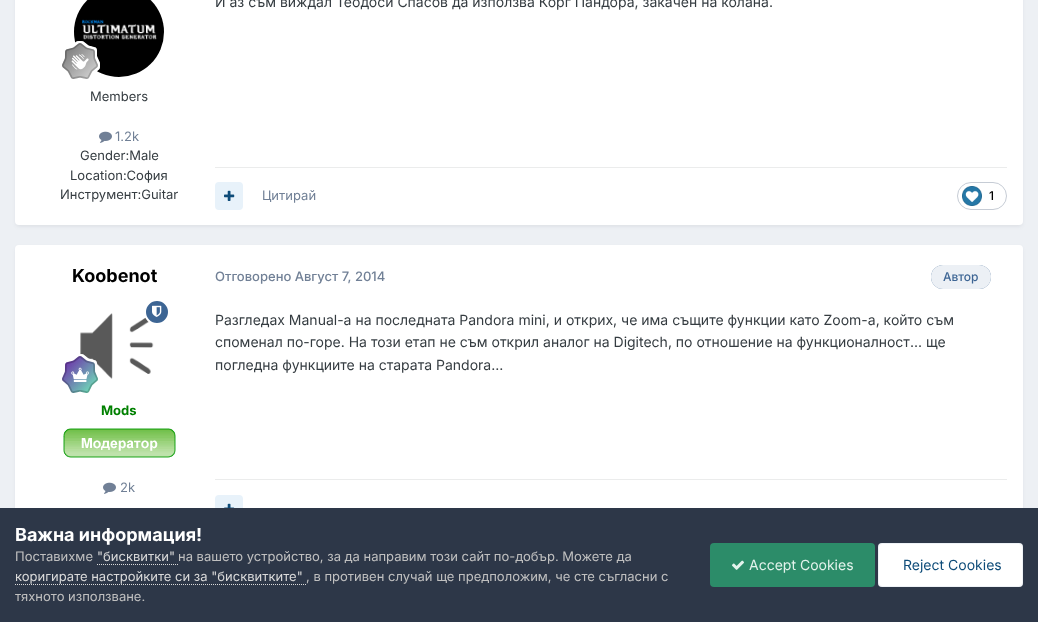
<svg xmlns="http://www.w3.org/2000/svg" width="1038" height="622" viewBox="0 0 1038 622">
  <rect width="100%" height="100%" fill="rgb(237,240,244)"/>
  <rect x="16" y="-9" width="1006" height="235" rx="3" fill="rgba(45,55,72,0.1)" filter="blur(2px)"/>
  <rect x="15" y="-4" width="1008" height="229" rx="4" fill="rgb(255,255,255)"/>
  <image x="74" y="0" width="90" height="77" href="pic1.png"/>
  <image x="62" y="41" width="38" height="38" href="pic2.png"/>
  <text x="90" y="101" font-family="Inter" font-size="13" fill="rgb(53,60,65)">Members</text>
  <image x="99" y="131" width="13" height="12" href="pic3.png"/>
  <text x="115" y="141" font-family="Inter" font-size="13" fill="rgb(113,128,150)">1.2k</text>
  <g font-family="Inter" font-size="13" fill="rgb(53,60,65)">
    <text x="80" y="160">Gender:Male</text>
    <text x="70" y="180">Location:София</text>
    <text x="60" y="199">Инструмент:Guitar</text>
  </g>
  <text x="215" y="7" font-family="Inter" font-size="14" fill="rgb(53,60,65)">И аз съм виждал Теодоси Спасов да използва Корг Пандора, закачен на колана.</text>
  <rect x="215" y="167" width="792" height="1" fill="rgb(235,236,236)"/>
  <rect x="215" y="182" width="28" height="28" rx="4" fill="rgb(232,242,250)"/>
  <image x="224" y="190" width="11" height="11" href="pic4.png"/>
  <text x="262" y="200" font-family="Inter" font-size="13" fill="rgb(113,128,150)">Цитирай</text>
  <rect x="957.5" y="182.5" width="49" height="27" rx="13.5" fill="none" stroke="rgb(198,204,213)"/>
  <image x="962" y="186" width="20" height="20" href="pic5.png"/>
  <text x="989" y="200" font-family="Inter" font-size="12" font-weight="500" fill="rgb(0,0,0)">1</text>
  <rect x="16" y="248" width="1006" height="290" rx="3" fill="rgba(45,55,72,0.1)" filter="blur(2px)"/>
  <rect x="15" y="245" width="1008" height="292" rx="4" fill="rgb(255,255,255)"/>
  <text x="72" y="282" font-family="Inter" font-size="18" font-weight="bold" fill="rgb(0,0,0)">Koobenot</text>
  <image x="80" y="313" width="74" height="66" href="pic6.png"/>
  <circle cx="157" cy="312" r="12" fill="rgb(61,101,148)" stroke="rgb(255,255,255)" stroke-width="2"/>
  <image x="152" y="305" width="10" height="12" href="pic7.png"/>
  <image x="62" y="354" width="36" height="39" href="pic8.png"/>
  <text x="101" y="415" font-family="Inter" font-size="13" font-weight="bold" fill="rgb(0,128,0)">Mods</text>
  <image x="63" y="428" width="113" height="30" href="pic9.png"/>
  <image x="103" y="482" width="13" height="12" href="pic3.png"/>
  <text x="120" y="492" font-family="Inter" font-size="13" fill="rgb(113,128,150)">2k</text>
  <text x="215" y="281" font-family="Inter" font-size="13" font-weight="500" fill="rgb(113,128,150)">Отговорено Август 7, 2014</text>
  <rect x="931" y="265" width="60" height="24" rx="12" fill="rgb(61,101,148)"/>
  <rect x="931" y="265" width="60" height="24" rx="12" fill="rgba(255,255,255,0.9)"/>
  <text x="943" y="281" font-family="Inter" font-size="12" font-weight="500" fill="rgb(61,101,148)">Автор</text>
  <g font-family="Inter" font-size="14" fill="rgb(53,60,65)">
    <text>
      <tspan x="215" y="325">Разгледах Manual-а на последната Pandora mini, и открих, че има същите функции като Zoom-а, който съм</tspan>
      <tspan x="215" y="347">споменал по-горе. На този етап не съм открил аналог на Digitech, по отношение на функционалност... ще</tspan>
      <tspan x="215" y="370">погледна функциите на старата Pandora...</tspan>
    </text>
  </g>
  <rect x="215" y="479" width="792" height="1" fill="rgb(235,236,236)"/>
  <rect x="215" y="495" width="28" height="28" rx="4" fill="rgb(232,242,250)"/>
  <image x="224" y="503" width="11" height="5" href="pic10.png"/>
  <rect x="0" y="508" width="1038" height="114" fill="rgb(45,55,72)"/>
  <text x="15" y="541" font-family="Inter" font-size="18" font-weight="bold" fill="rgb(255,255,255)">Важна информация!</text>
  <text x="15" y="561" font-family="Inter" font-size="13" fill="rgb(192,192,192)">Поставихме</text>
  <text x="97" y="561" font-family="Inter" font-size="13" fill="rgb(218,218,218)">"бисквитки"</text>
  <path d="M97 564.5H178" fill="none" stroke="rgb(218,218,218)" stroke-dasharray="1 1"/>
  <text x="178" y="561" font-family="Inter" font-size="13" fill="rgb(192,192,192)">на вашето устройство, за да направим този сайт по-добър. Можете да</text>
  <text x="15" y="581" font-family="Inter" font-size="13" fill="rgb(218,218,218)">коригирате настройките си за "бисквитките"</text>
  <path d="M15 584.5H306" fill="none" stroke="rgb(218,218,218)" stroke-dasharray="1 1"/>
  <g font-family="Inter" font-size="13" fill="rgb(192,192,192)">
    <text x="306" y="581">, в противен случай ще предположим, че сте съгласни с</text>
    <text x="15" y="601">тяхното използване.</text>
  </g>
  <rect x="710" y="543" width="165" height="44" rx="4" fill="rgb(44,140,105)"/>
  <image x="732" y="560" width="12" height="10" href="pic11.png"/>
  <text x="749" y="570" font-family="Inter" font-size="14" fill="rgb(227,243,236)">Accept Cookies</text>
  <rect x="878" y="543" width="145" height="44" rx="4" fill="rgb(255,255,255)"/>
  <rect x="878.5" y="543.5" width="144" height="43" rx="3.5" fill="none" stroke="rgba(14,76,121,0.07)"/>
  <text x="903" y="570" font-family="Inter" font-size="14" fill="rgb(14,76,121)">Reject Cookies</text>
</svg>
